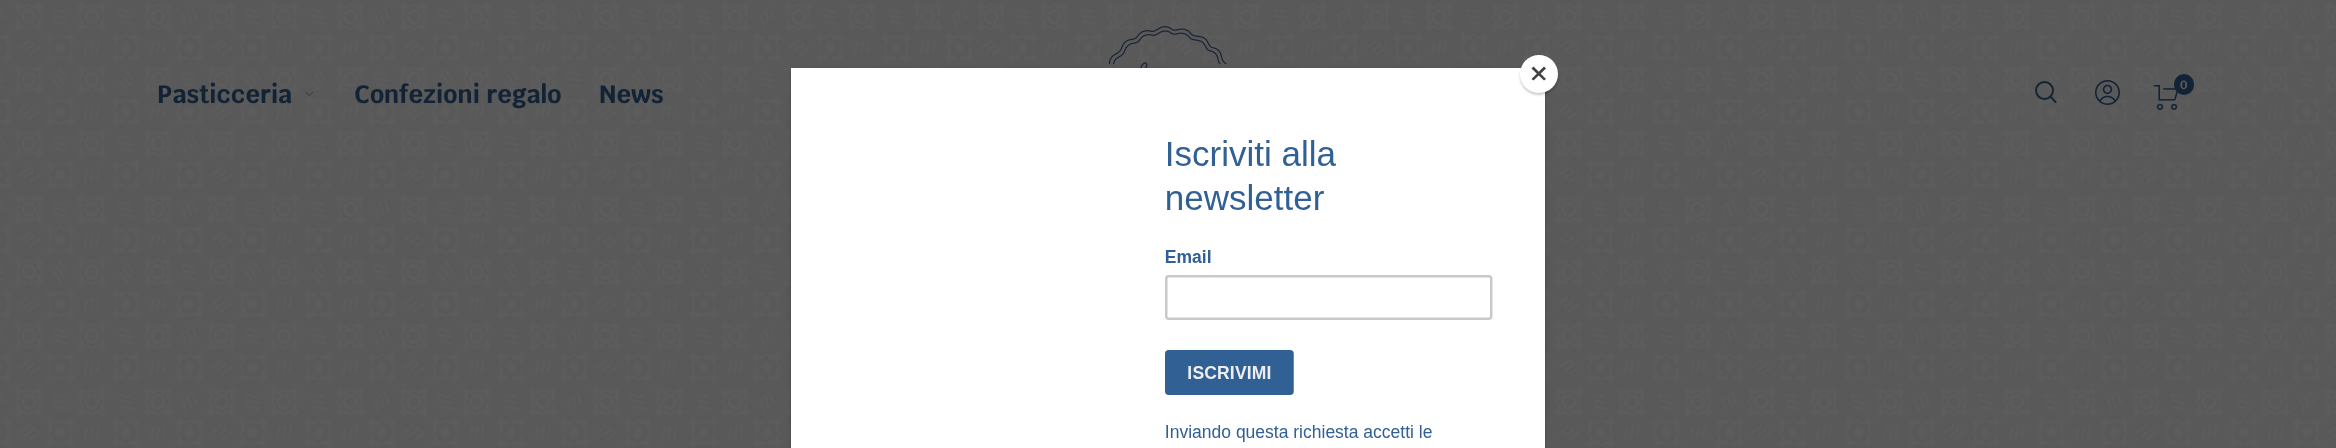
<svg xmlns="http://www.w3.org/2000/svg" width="2336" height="448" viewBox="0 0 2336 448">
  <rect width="100%" height="100%" fill="rgb(89,89,90)"/>
  <image x="0" y="1" width="2336" height="447" href="pic2.png"/>
  <image x="1108" y="26" width="119" height="42" href="pic3.png"/>
  <rect x="791" y="70" width="754" height="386" fill="rgba(0,0,0,0.2)" filter="blur(2.5px)"/>
  <image x="791" y="68" width="754" height="380" href="pic1.png"/>
  <rect x="1520" y="58" width="38" height="37" rx="18.5" fill="rgba(0,0,0,0.2)" filter="blur(1px)"/>
  <circle cx="1539" cy="74" r="19" fill="rgb(255,255,255)"/>
  <path d="M1544 66.5L1546 68.5L1533.5 80.5L1531.5 79Z" fill="rgb(65,65,65)"/>
  <path d="M1531.5 68.5L1533.5 66.5L1546 79L1544 80.5Z" fill="rgb(65,65,65)"/>
  <text x="157" y="103" font-family="Krub" font-size="25" font-weight="bold" fill="rgb(18,35,53)">Pasticceria</text>
  <image x="305" y="91" width="9" height="5" href="pic4.png"/>
  <g font-family="Krub" font-size="25" font-weight="bold" fill="rgb(18,35,53)">
    <text x="354" y="103">Confezioni regalo</text>
    <text x="599" y="103">News</text>
  </g>
  <path d="M2055.5 102L2050.5 96.5" fill="none" stroke="rgb(18,35,53)" stroke-width="1.9" stroke-linecap="square"/>
  <circle cx="2044.5" cy="90.5" r="8.5" fill="none" stroke="rgb(18,35,53)" stroke-width="1.9"/>
  <image x="2095" y="80" width="25" height="25" href="pic5.png"/>
  <image x="2153" y="85" width="25" height="25" href="pic6.png"/>
  <rect x="2174" y="74" width="20" height="21" rx="10" fill="rgb(18,35,53)"/>
  <text x="2180" y="89" font-family="Krub" font-size="12" font-weight="bold" fill="rgb(92,92,92)">0</text>
</svg>
